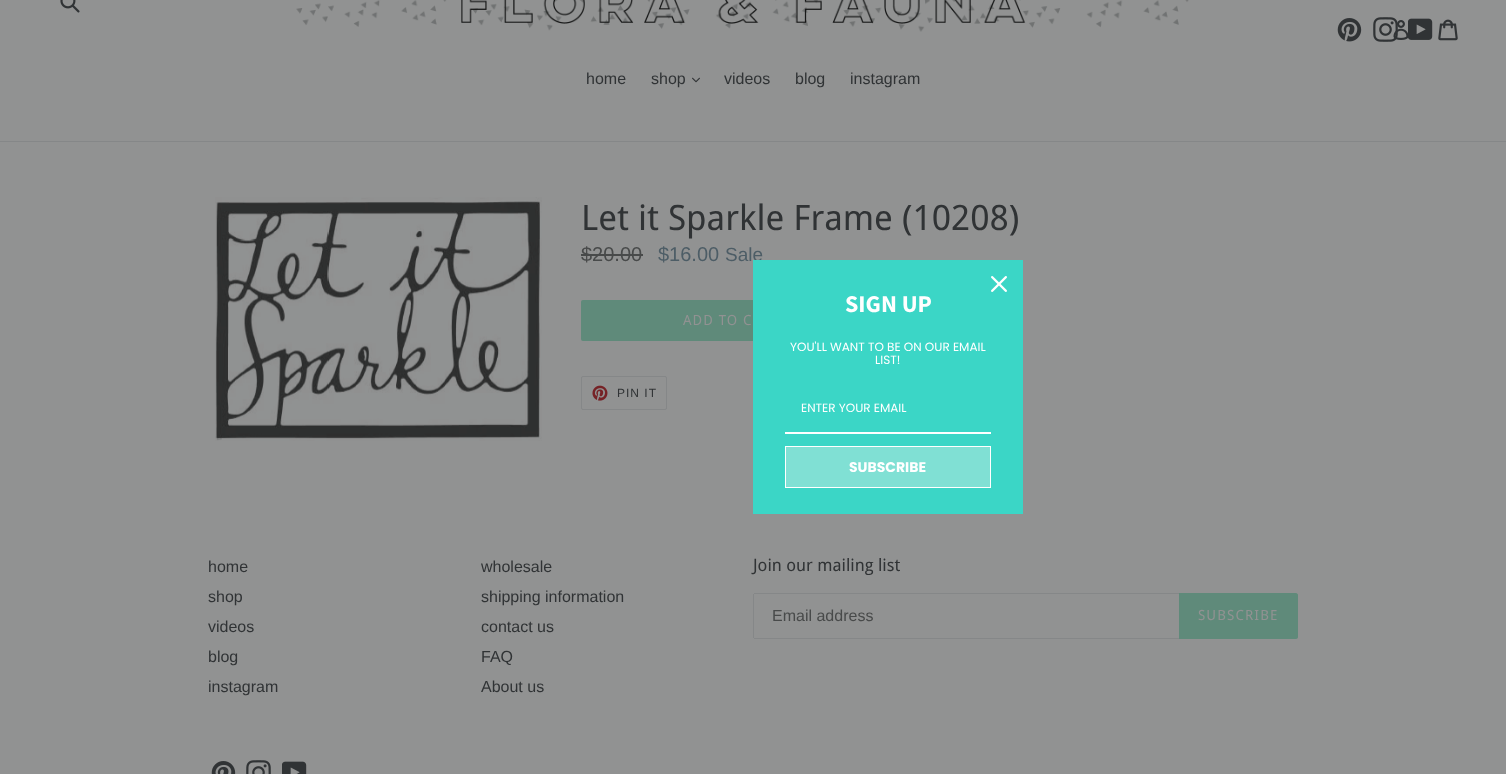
<svg xmlns="http://www.w3.org/2000/svg" width="1506" height="774" viewBox="0 0 1506 774">
  <rect width="100%" height="100%" fill="rgb(145,146,146)"/>
  <image x="60" y="0" width="20" height="13" href="pic1.png"/>
  <image x="296" y="0" width="893" height="32" href="pic2.png"/>
  <image x="1337" y="18" width="25" height="24" href="pic3.png"/>
  <image x="1373" y="17" width="25" height="25" href="pic4.png"/>
  <image x="1408" y="18" width="25" height="22" href="pic5.png"/>
  <image x="1438" y="19" width="20" height="22" href="pic6.png"/>
  <image x="1393" y="20" width="15" height="20" href="pic7.png"/>
  <rect x="0" y="141" width="1506" height="1" fill="rgb(133,135,136)"/>
  <g font-family="Liberation Sans" font-size="16" fill="rgb(48,51,53)">
    <text x="586" y="84">home</text>
    <text x="651" y="84">shop</text>
  </g>
  <image x="692" y="77" width="8" height="6" href="pic8.png"/>
  <g font-family="Liberation Sans" font-size="16" fill="rgb(48,51,53)">
    <text x="724" y="84">videos</text>
    <text x="795" y="84">blog</text>
    <text x="850" y="84">instagram</text>
  </g>
  <image x="215" y="197" width="327" height="244" href="pic9.png"/>
  <text x="581" y="230" font-family="Droid Sans" font-size="35" fill="rgb(48,51,53)">Let it Sparkle Frame (10208)</text>
  <text x="581" y="261" font-family="Liberation Sans" font-size="20" fill="rgb(72,74,74)">$20.00</text>
  <rect x="581" y="254" width="62" height="2" fill="rgb(72,74,74)"/>
  <text x="658" y="261" font-family="Liberation Sans" font-size="20" fill="rgb(77,93,102)">$16.00</text>
  <text x="725" y="261" font-family="Liberation Sans" font-size="19" fill="rgb(77,93,102)">Sale</text>
  <rect x="581" y="300" width="300" height="41" rx="2" fill="rgb(95,138,122)"/>
  <text x="683" y="325" font-family="Droid Sans" font-size="14" letter-spacing="1.1" fill="rgb(145,146,146)">ADD TO C</text>
  <rect x="581.5" y="376.5" width="85" height="33" rx="1.5" fill="none" stroke="rgb(133,135,136)"/>
  <image x="592" y="385" width="16" height="16" href="pic10.png"/>
  <text x="617" y="397" font-family="Liberation Sans" font-size="12" letter-spacing="1" fill="rgb(48,51,53)">PIN IT</text>
  <g font-family="Liberation Sans" font-size="16" fill="rgb(48,51,53)">
    <text>
      <tspan x="208" y="572">home</tspan>
      <tspan x="208" y="602">shop</tspan>
      <tspan x="208" y="632">videos</tspan>
      <tspan x="208" y="662">blog</tspan>
      <tspan x="208" y="692">instagram</tspan>
    </text>
    <text>
      <tspan x="481" y="572">wholesale</tspan>
      <tspan x="481" y="602">shipping information</tspan>
      <tspan x="481" y="632">contact us</tspan>
      <tspan x="481" y="662">FAQ</tspan>
      <tspan x="481" y="692">About us</tspan>
    </text>
  </g>
  <text x="753" y="571" font-family="Droid Sans" font-size="17" fill="rgb(48,51,53)">Join our mailing list</text>
  <rect x="754" y="593" width="425" height="1" fill="rgb(133,135,136)"/>
  <rect x="754" y="638" width="425" height="1" fill="rgb(133,135,136)"/>
  <rect x="753" y="594" width="1" height="44" fill="rgb(133,135,136)"/>
  <text x="772" y="621" font-family="Liberation Sans" font-size="16" fill="rgb(72,74,74)">Email address</text>
  <path d="M1179 593H1296C1297 593 1298 594 1298 595V637C1298 638 1297 639 1296 639H1179Z" fill="rgb(95,138,122)"/>
  <text x="1198" y="620" font-family="Droid Sans" font-size="14" letter-spacing="1.1" fill="rgb(145,146,146)">SUBSCRIBE</text>
  <image x="211" y="761" width="25" height="13" href="pic11.png"/>
  <image x="246" y="760" width="25" height="14" href="pic12.png"/>
  <image x="282" y="761" width="25" height="13" href="pic13.png"/>
  <rect x="753" y="260" width="270" height="254" fill="rgb(59,214,198)"/>
  <image x="991" y="276" width="16" height="16" href="pic14.png"/>
  <text x="845" y="312" font-family="Source Sans Pro" font-size="24" font-weight="bold" fill="rgb(255,255,255)">SIGN UP</text>
  <g font-family="Poppins" font-size="12" fill="rgb(255,255,255)">
    <text x="790" y="351">YOU'LL WANT TO BE ON OUR EMAIL</text>
    <text x="875" y="364">LIST!</text>
  </g>
  <rect x="785" y="432" width="206" height="2" fill="rgb(255,255,255)"/>
  <text x="801" y="412" font-family="Poppins" font-size="12" fill="rgb(255,255,255)">ENTER YOUR EMAIL</text>
  <rect x="785.5" y="446.5" width="205" height="41" fill="rgb(128,224,212)" stroke="rgb(255,255,255)"/>
  <text x="849" y="472" font-family="Poppins" font-size="14" font-weight="bold" fill="rgb(255,255,255)">SUBSCRIBE</text>
</svg>
